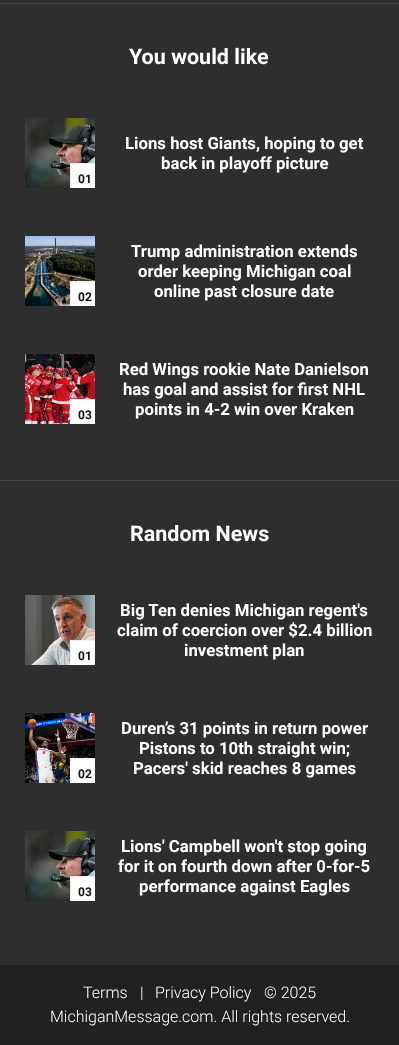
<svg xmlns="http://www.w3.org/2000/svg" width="399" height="1045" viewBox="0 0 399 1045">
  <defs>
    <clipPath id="clip1"><rect x="25" y="118" width="70" height="70"/></clipPath>
    <clipPath id="clip2"><rect x="25" y="236" width="70" height="70"/></clipPath>
    <clipPath id="clip3"><rect x="25" y="354" width="70" height="70"/></clipPath>
    <clipPath id="clip4"><rect x="25" y="595" width="70" height="70"/></clipPath>
    <clipPath id="clip5"><rect x="25" y="713" width="70" height="70"/></clipPath>
    <clipPath id="clip6"><rect x="25" y="831" width="70" height="70"/></clipPath>
  </defs>
  <rect width="100%" height="100%" fill="rgb(46,46,46)"/>
  <rect x="0" y="3" width="399" height="1" fill="rgb(67,67,67)"/>
  <text x="129" y="64" font-family="Roboto" font-size="21.5" font-weight="bold" fill="rgb(255,255,255)">You would like</text>
  <g font-family="Roboto" font-size="16.75" font-weight="bold" fill="rgb(255,255,255)">
    <text x="125" y="149">Lions host Giants, hoping to get</text>
    <text x="161" y="169">back in playoff picture</text>
  </g>
  <image x="25" y="118" width="70" height="70" href="pic1.png"/>
  <rect x="71" y="164" width="24" height="24" fill="rgb(255,255,255)"/>
  <g clip-path="url(#clip1)">
    <rect x="70.5" y="163.5" width="29" height="29" fill="none" stroke="rgb(238,238,238)"/>
  </g>
  <text x="78" y="183" font-family="Roboto" font-size="12" font-weight="bold" fill="rgb(17,17,17)">01</text>
  <image x="25" y="236" width="70" height="70" href="pic2.png"/>
  <rect x="71" y="282" width="24" height="24" fill="rgb(255,255,255)"/>
  <g clip-path="url(#clip2)">
    <rect x="70.5" y="281.5" width="29" height="29" fill="none" stroke="rgb(238,238,238)"/>
  </g>
  <text x="78" y="301" font-family="Roboto" font-size="12" font-weight="bold" fill="rgb(17,17,17)">02</text>
  <g font-family="Roboto" font-size="16.75" font-weight="bold" fill="rgb(255,255,255)">
    <text x="131" y="257">Trump administration extends</text>
    <text x="138" y="277">order keeping Michigan coal</text>
    <text x="154" y="297">online past closure date</text>
  </g>
  <image x="25" y="354" width="70" height="70" href="pic3.png"/>
  <rect x="71" y="400" width="24" height="24" fill="rgb(255,255,255)"/>
  <g clip-path="url(#clip3)">
    <rect x="70.5" y="399.5" width="29" height="29" fill="none" stroke="rgb(238,238,238)"/>
  </g>
  <text x="78" y="419" font-family="Roboto" font-size="12" font-weight="bold" fill="rgb(17,17,17)">03</text>
  <g font-family="Roboto" font-size="16.75" font-weight="bold" fill="rgb(255,255,255)">
    <text x="119" y="375">Red Wings rookie Nate Danielson</text>
    <text x="123" y="395">has goal and assist for first NHL</text>
    <text x="135" y="415">points in 4-2 win over Kraken</text>
  </g>
  <rect x="0" y="480" width="399" height="1" fill="rgb(67,67,67)"/>
  <text x="130" y="541" font-family="Roboto" font-size="21.5" font-weight="bold" fill="rgb(255,255,255)">Random News</text>
  <image x="25" y="595" width="70" height="70" href="pic4.png"/>
  <rect x="71" y="641" width="24" height="24" fill="rgb(255,255,255)"/>
  <g clip-path="url(#clip4)">
    <rect x="70.5" y="640.5" width="29" height="29" fill="none" stroke="rgb(238,238,238)"/>
  </g>
  <text x="78" y="660" font-family="Roboto" font-size="12" font-weight="bold" fill="rgb(17,17,17)">01</text>
  <g font-family="Roboto" font-size="16.75" font-weight="bold" fill="rgb(255,255,255)">
    <text x="120" y="616">Big Ten denies Michigan regent's</text>
    <text x="117" y="636">claim of coercion over $2.4 billion</text>
    <text x="184" y="656">investment plan</text>
  </g>
  <image x="25" y="713" width="70" height="70" href="pic5.png"/>
  <rect x="71" y="759" width="24" height="24" fill="rgb(255,255,255)"/>
  <g clip-path="url(#clip5)">
    <rect x="70.5" y="758.5" width="29" height="29" fill="none" stroke="rgb(238,238,238)"/>
  </g>
  <text x="78" y="778" font-family="Roboto" font-size="12" font-weight="bold" fill="rgb(17,17,17)">02</text>
  <g font-family="Roboto" font-size="16.75" font-weight="bold" fill="rgb(255,255,255)">
    <text x="121" y="734">Duren’s 31 points in return power</text>
    <text x="139" y="754">Pistons to 10th straight win;</text>
    <text x="133" y="774">Pacers' skid reaches 8 games</text>
  </g>
  <image x="25" y="831" width="70" height="70" href="pic6.png"/>
  <rect x="71" y="877" width="24" height="24" fill="rgb(255,255,255)"/>
  <g clip-path="url(#clip6)">
    <rect x="70.5" y="876.5" width="29" height="29" fill="none" stroke="rgb(238,238,238)"/>
  </g>
  <text x="78" y="896" font-family="Roboto" font-size="12" font-weight="bold" fill="rgb(17,17,17)">03</text>
  <g font-family="Roboto" font-size="16.75" font-weight="bold" fill="rgb(255,255,255)">
    <text x="121" y="852">Lions' Campbell won't stop going</text>
    <text x="118" y="872">for it on fourth down after 0-for-5</text>
    <text x="139" y="892">performance against Eagles</text>
  </g>
  <rect x="0" y="965" width="399" height="80" fill="rgb(33,33,33)"/>
  <g font-family="Roboto" font-size="16" font-weight="300" fill="rgb(255,255,255)">
    <text x="83" y="998">Terms</text>
    <text x="140" y="998">|</text>
    <text x="155" y="998">Privacy Policy</text>
    <text x="264" y="998">© 2025</text>
    <text x="50" y="1022">MichiganMessage.com. All rights reserved.</text>
  </g>
</svg>
